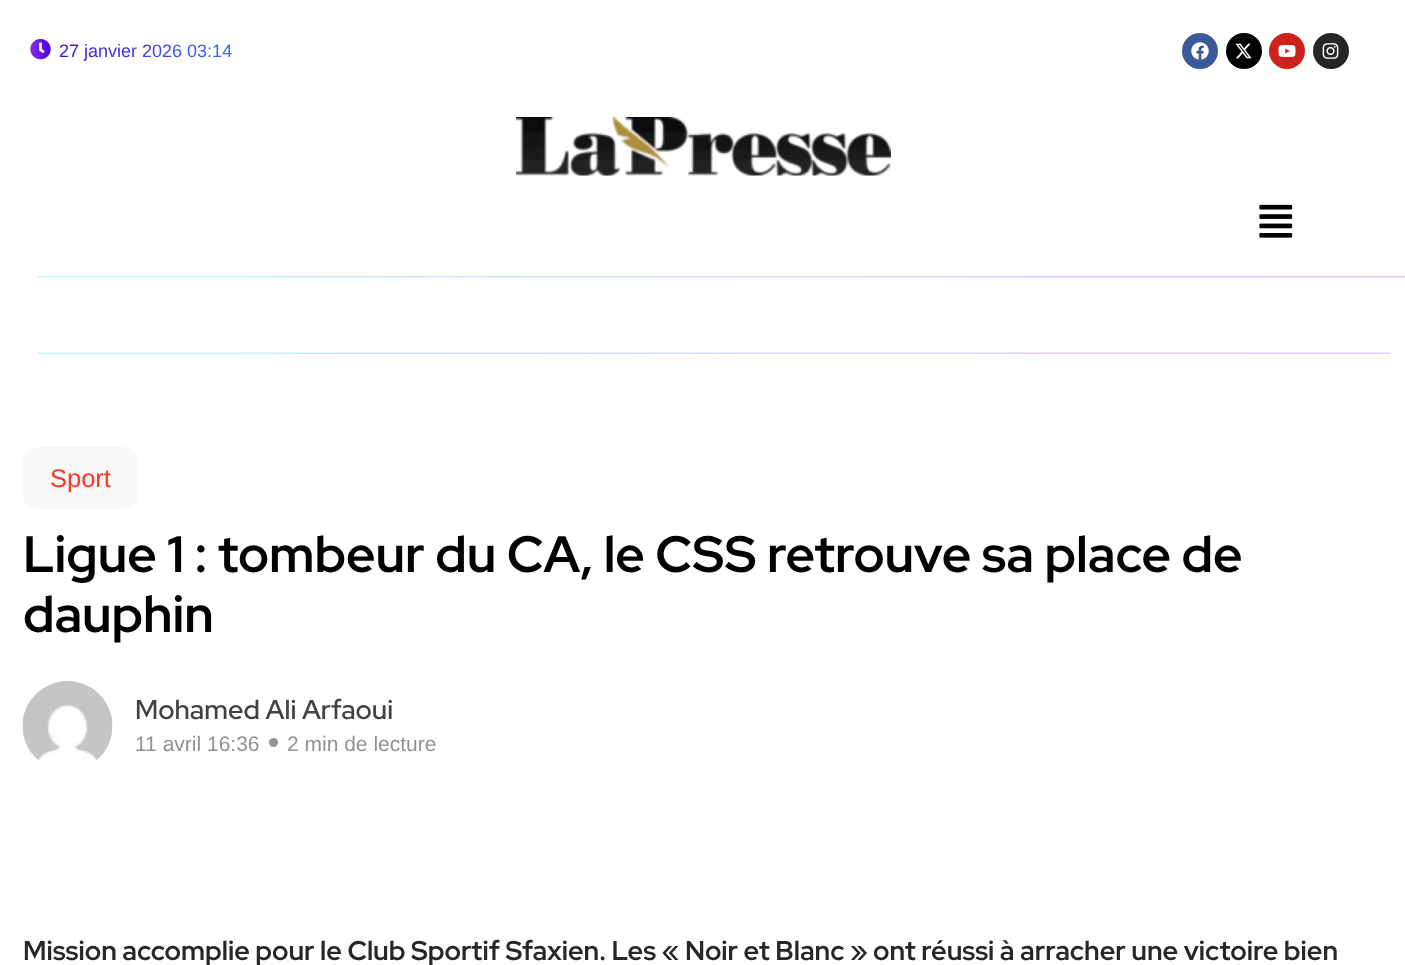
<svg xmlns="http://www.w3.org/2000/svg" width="1405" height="965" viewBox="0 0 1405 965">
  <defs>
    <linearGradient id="g1" gradientUnits="userSpaceOnUse" x1="30" y1="50" x2="232" y2="49"><stop offset="0" stop-color="rgb(74,0,224)"/><stop offset="1" stop-color="rgb(52,113,235)"/></linearGradient>
  </defs>
  <rect width="100%" height="100%" fill="rgb(255,255,255)"/>
  <image x="30" y="39" width="21" height="21" href="pic1.png"/>
  <text x="59" y="57" font-family="Liberation Sans" font-size="18" fill="url(#g1)">27 janvier 2026 03:14</text>
  <circle cx="1200" cy="51" r="18" fill="rgb(59,89,152)"/>
  <image x="1191" y="42" width="18" height="18" href="pic2.png"/>
  <circle cx="1244" cy="51" r="18" fill="rgb(0,0,0)"/>
  <image x="1235" y="43" width="17" height="16" href="pic3.png"/>
  <circle cx="1287" cy="51" r="18" fill="rgb(205,32,31)"/>
  <image x="1278" y="45" width="18" height="12" href="pic4.png"/>
  <circle cx="1331" cy="51" r="18" fill="rgb(38,38,38)"/>
  <image x="1322" y="43" width="17" height="16" href="pic5.png"/>
  <image x="516" y="117" width="375" height="59" href="pic6.png"/>
  <image x="1259" y="204" width="34" height="34" href="pic7.png"/>
  <image x="37" y="276" width="1368" height="2" href="pic8.png"/>
  <image x="37" y="352" width="1354" height="2" href="pic9.png"/>
  <rect x="23" y="447" width="115" height="62" rx="15" fill="rgb(248,248,248)"/>
  <text x="50" y="487" font-family="Liberation Sans" font-size="25.5" fill="rgb(255,53,36)">Sport</text>
  <g font-family="Red Hat Display" font-size="51" font-weight="bold" fill="rgb(0,0,0)">
    <text>
      <tspan x="23" y="572">Ligue 1 : tombeur du CA, le CSS retrouve sa place de</tspan>
      <tspan x="23" y="632">dauphin</tspan>
    </text>
  </g>
  <image x="22" y="681" width="91" height="80" href="pic10.png"/>
  <text x="135" y="719" font-family="Red Hat Display" font-size="27" font-weight="600" fill="rgb(66,66,66)">Mohamed Ali Arfaoui</text>
  <text x="135" y="751" font-family="Liberation Sans" font-size="21" fill="rgb(146,146,146)">11 avril 16:36</text>
  <circle cx="273.5" cy="742.5" r="4.5" fill="rgb(146,146,146)"/>
  <text x="287" y="751" font-family="Liberation Sans" font-size="21" fill="rgb(146,146,146)">2 min de lecture</text>
  <text x="23" y="960" font-family="Red Hat Display" font-size="27" font-weight="bold" fill="rgb(39,39,39)">Mission accomplie pour le Club Sportif Sfaxien. Les « Noir et Blanc » ont réussi à arracher une victoire bien</text>
</svg>
